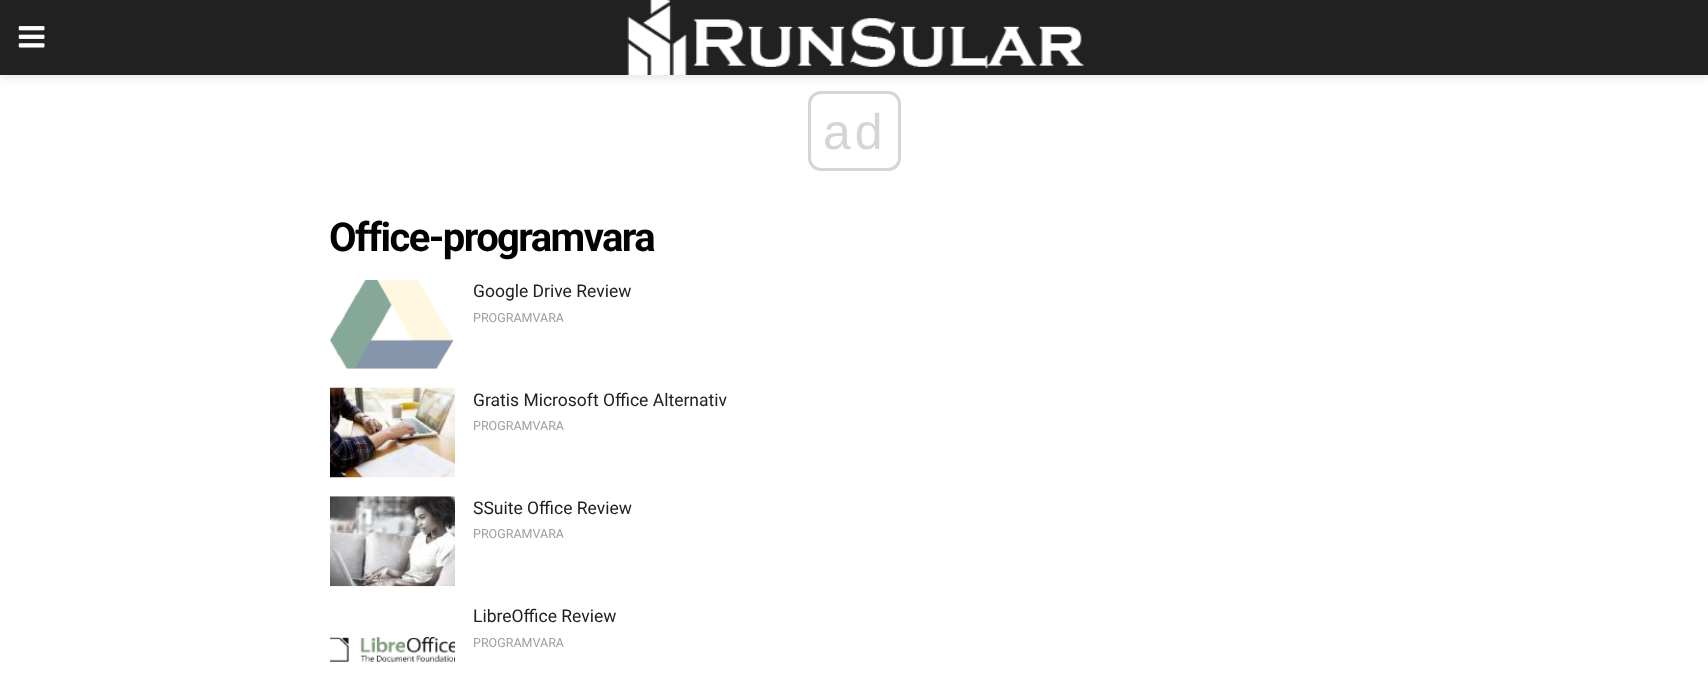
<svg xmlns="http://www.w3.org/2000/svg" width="1708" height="700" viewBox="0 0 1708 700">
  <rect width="100%" height="100%" fill="rgb(255,255,255)"/>
  <rect x="0" y="3" width="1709" height="75" fill="rgba(0,0,0,0.1)" filter="blur(4px)"/>
  <rect x="0" y="0" width="1708" height="75" fill="rgb(33,33,33)"/>
  <image x="18" y="26" width="27" height="22" href="pic1.png"/>
  <image x="627" y="0" width="457" height="75" href="pic2.png"/>
  <rect x="809.5" y="92.5" width="90" height="77" rx="11.5" fill="none" stroke="rgb(213,213,213)" stroke-width="3"/>
  <text x="823" y="149" font-family="Liberation Sans" font-size="50" letter-spacing="4" fill="rgb(213,213,213)">ad</text>
  <text x="329" y="251" font-family="Roboto" font-size="40" font-weight="bold" letter-spacing="-1.6" fill="rgb(2,2,2)">Office-programvara</text>
  <image x="330" y="280" width="124" height="89" href="pic3.png"/>
  <text x="473" y="297" font-family="Roboto" font-size="17.5" fill="rgb(33,33,33)">Google Drive Review</text>
  <text x="473" y="322" font-family="Roboto" font-size="12.5" fill="rgb(160,160,160)">PROGRAMVARA</text>
  <image x="330" y="387" width="125" height="91" href="pic4.png"/>
  <text x="473" y="406" font-family="Roboto" font-size="17.5" fill="rgb(33,33,33)">Gratis Microsoft Office Alternativ</text>
  <text x="473" y="430" font-family="Roboto" font-size="12.5" fill="rgb(160,160,160)">PROGRAMVARA</text>
  <image x="330" y="496" width="125" height="91" href="pic5.png"/>
  <text x="473" y="514" font-family="Roboto" font-size="17.5" fill="rgb(33,33,33)">SSuite Office Review</text>
  <text x="473" y="538" font-family="Roboto" font-size="12.5" fill="rgb(160,160,160)">PROGRAMVARA</text>
  <image x="330" y="636" width="125" height="26" href="pic6.png"/>
  <text x="473" y="622" font-family="Roboto" font-size="17.5" fill="rgb(33,33,33)">LibreOffice Review</text>
  <text x="473" y="647" font-family="Roboto" font-size="12.5" fill="rgb(160,160,160)">PROGRAMVARA</text>
</svg>
